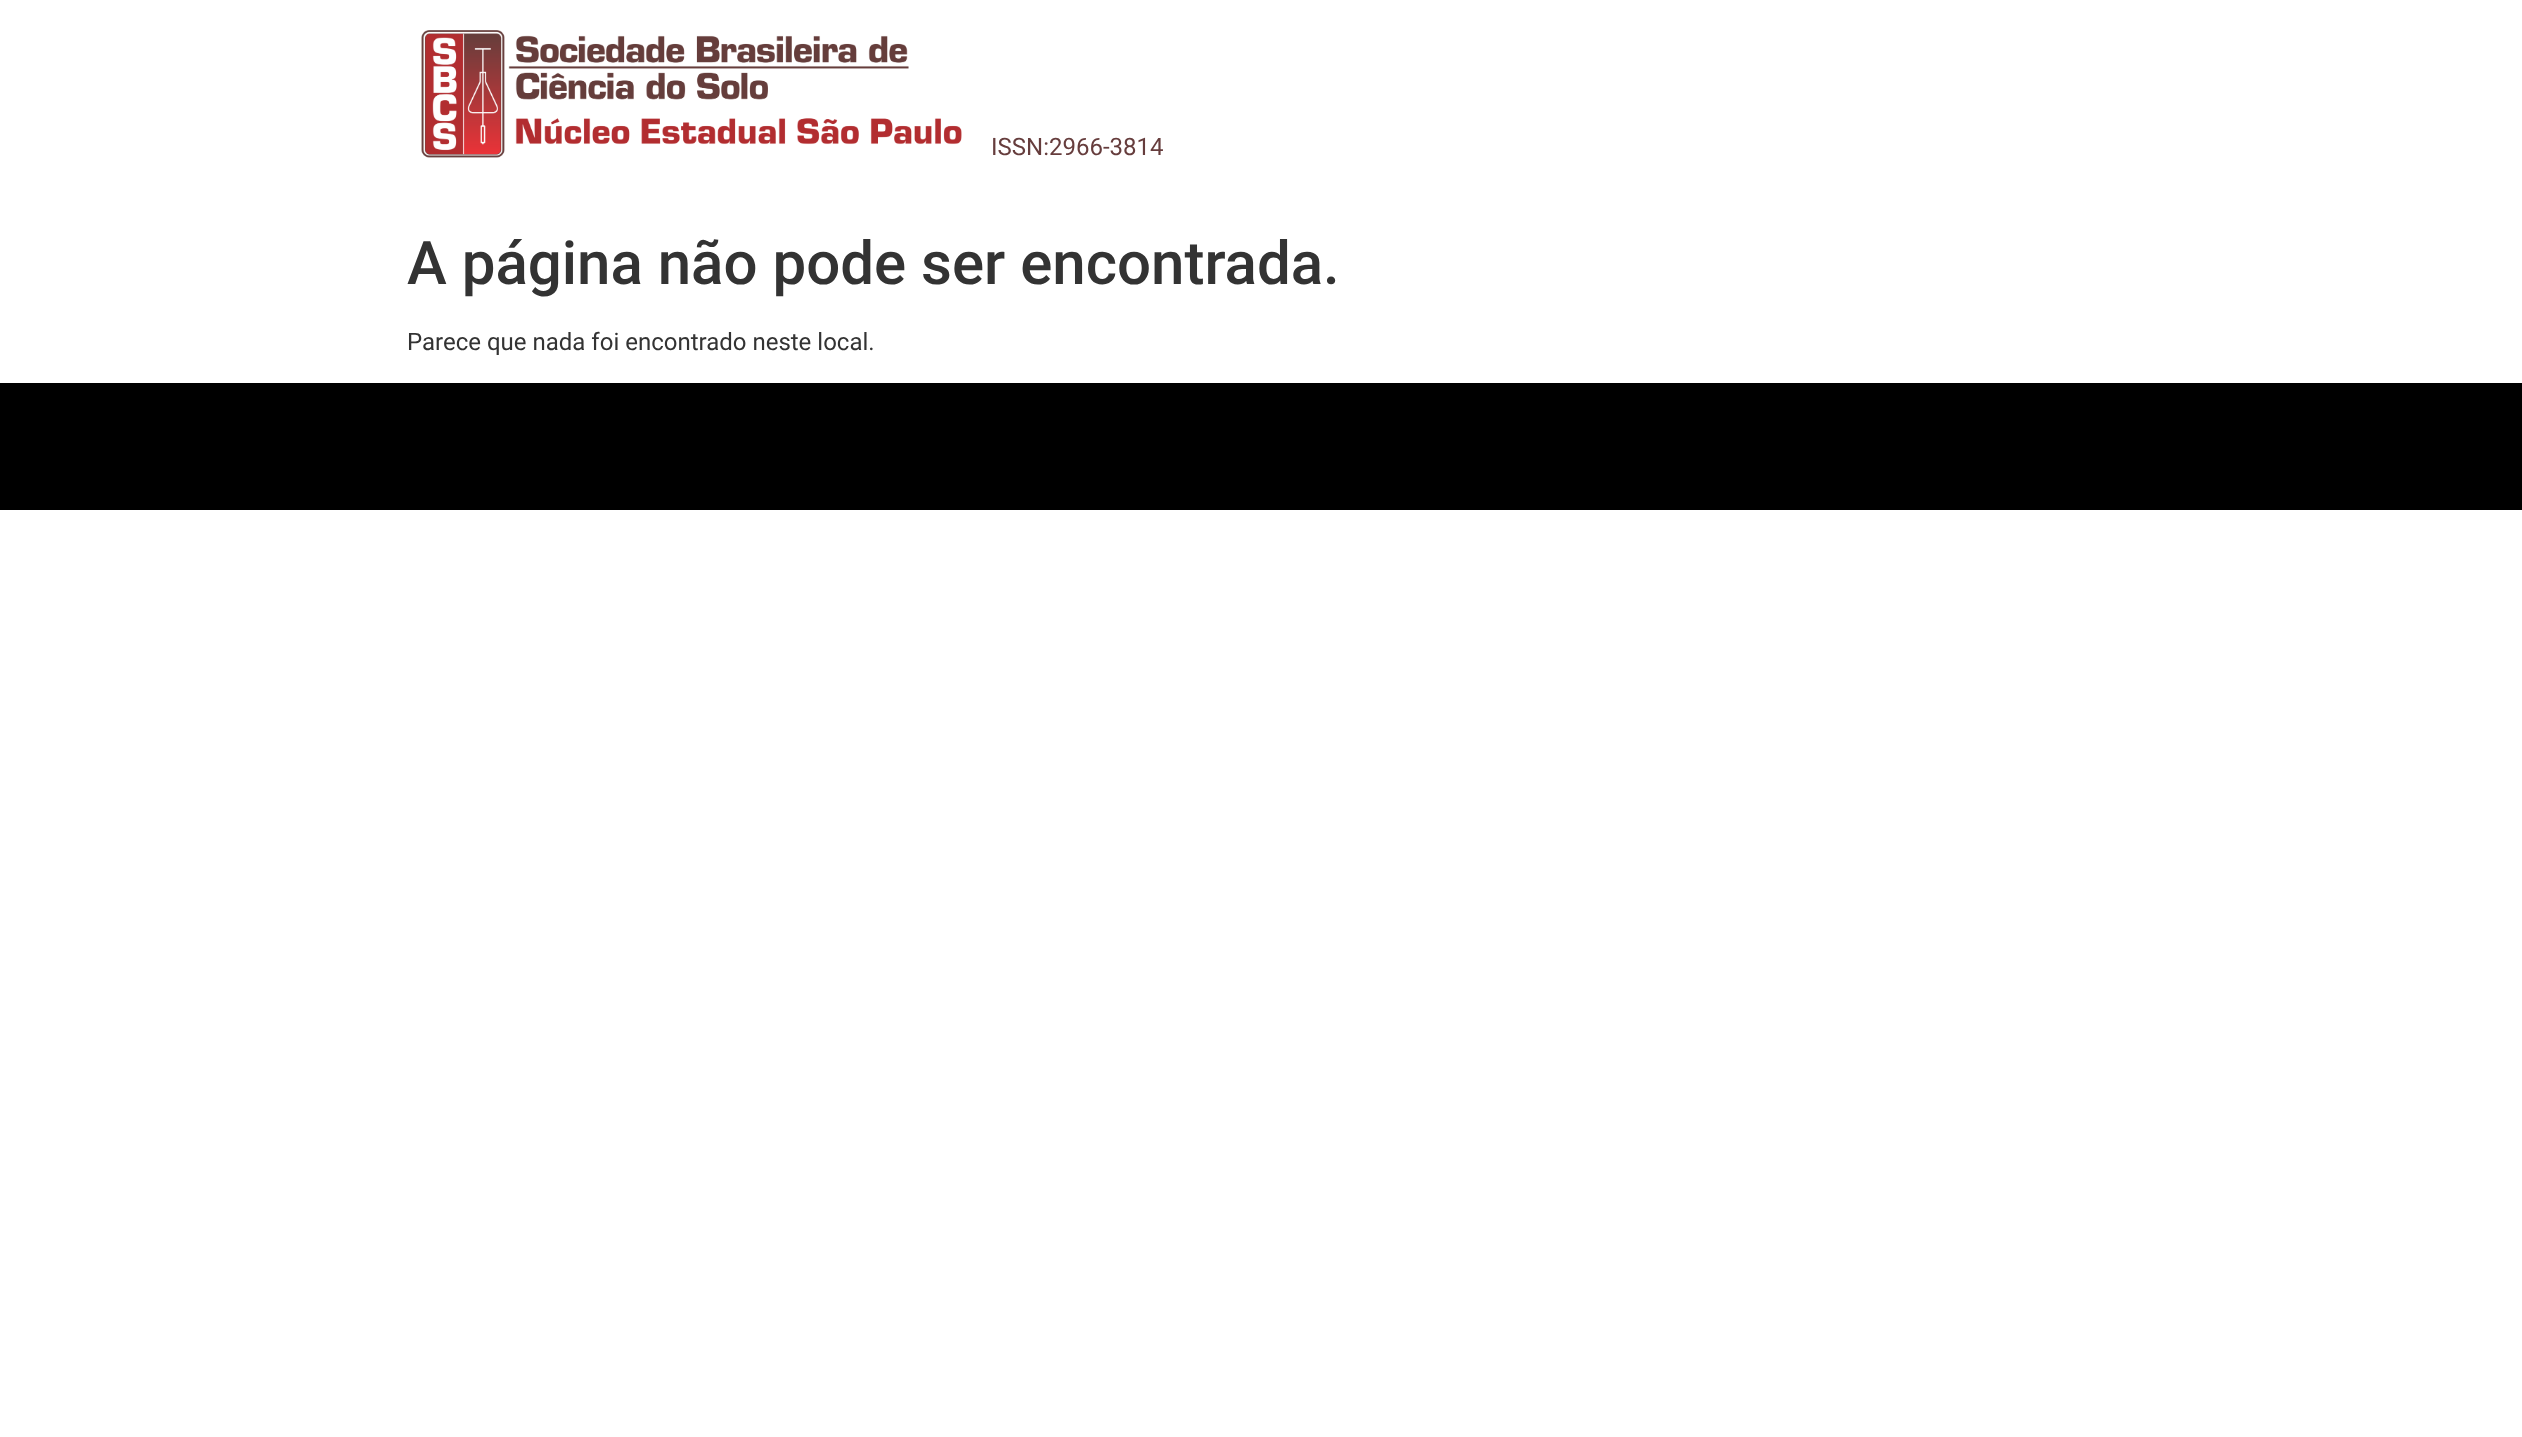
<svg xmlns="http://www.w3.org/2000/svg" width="2522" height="1437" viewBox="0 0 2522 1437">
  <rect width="100%" height="100%" fill="rgb(255,255,255)"/>
  <image x="421" y="30" width="541" height="128" href="pic1.png"/>
  <text x="991" y="155" font-family="Roboto" font-size="24" fill="rgb(102,61,61)">ISSN:2966-3814</text>
  <text x="407" y="284" font-family="Roboto" font-size="60" font-weight="500" fill="rgb(51,51,51)">A página não pode ser encontrada.</text>
  <text x="407" y="350" font-family="Roboto" font-size="24" fill="rgb(51,51,51)">Parece que nada foi encontrado neste local.</text>
  <rect x="0" y="383" width="2522" height="127" fill="rgb(0,0,0)"/>
</svg>
